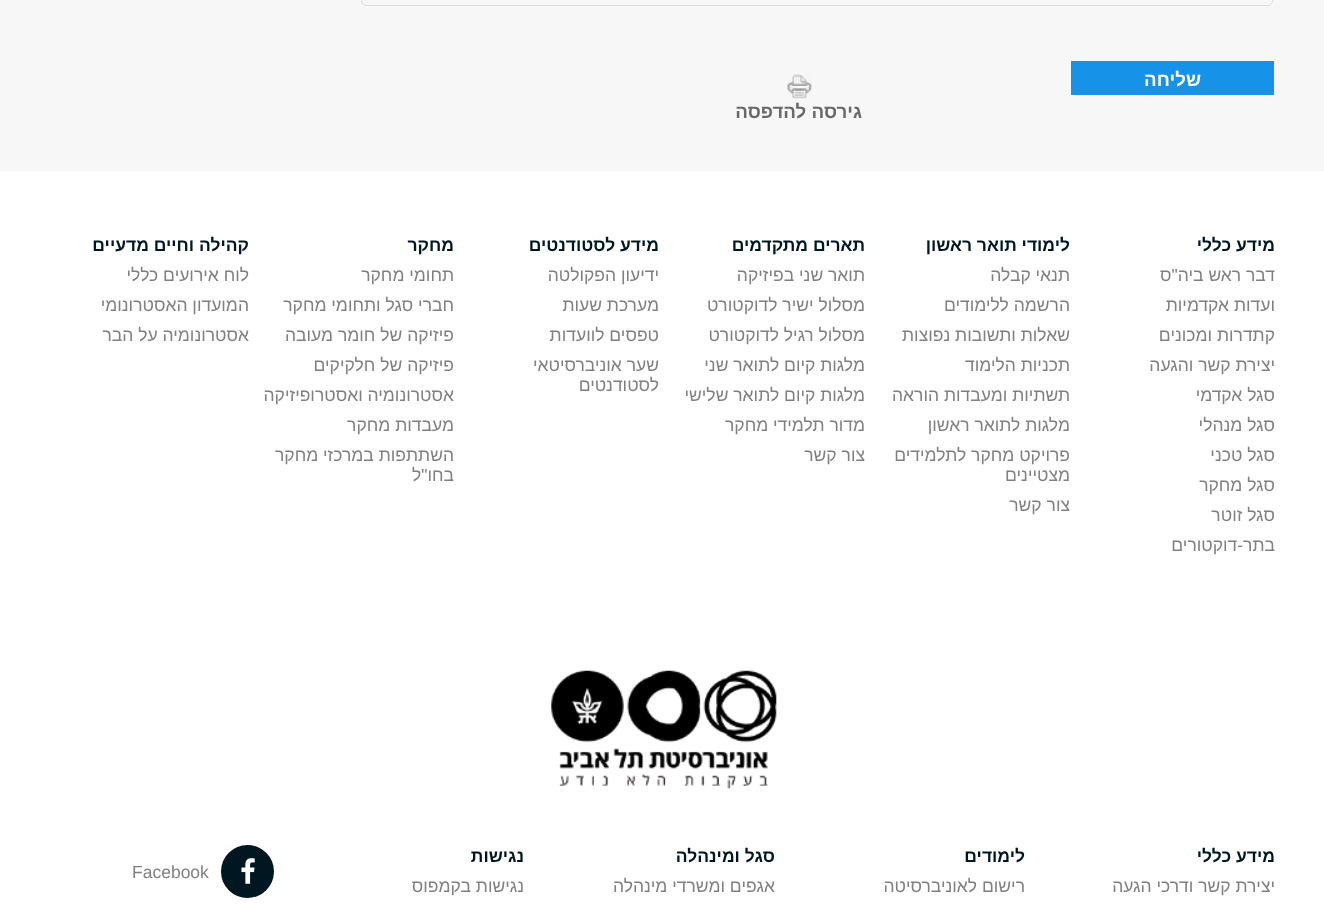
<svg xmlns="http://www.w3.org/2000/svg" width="1324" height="905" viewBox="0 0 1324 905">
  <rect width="100%" height="100%" fill="rgb(247,247,247)"/>
  <rect x="361.5" y="-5.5" width="911" height="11" rx="4.5" fill="none" stroke="rgb(221,221,221)"/>
  <rect x="1071" y="61" width="203" height="34" fill="rgb(22,146,232)"/>
  <text x="1201" y="86" font-family="Liberation Sans" font-size="18.75" font-weight="bold" direction="rtl" fill="rgb(255,255,255)">שליחה</text>
  <image x="787" y="74" width="25" height="25" href="pic1.png"/>
  <text x="862" y="118" font-family="Liberation Sans" font-size="18.75" font-weight="bold" direction="rtl" fill="rgb(105,105,105)">גירסה להדפסה</text>
  <rect x="0" y="171" width="1324" height="734" fill="rgb(255,255,255)"/>
  <text x="1275" y="251" font-family="Liberation Sans" font-size="17.5" font-weight="bold" direction="rtl" fill="rgb(0,23,33)">מידע כללי</text>
  <g font-family="Liberation Sans" font-size="17.5" direction="rtl" fill="rgb(128,128,128)">
    <text>
      <tspan x="1275" y="281">דבר ראש ביה"ס</tspan>
      <tspan x="1275" y="311">ועדות אקדמיות</tspan>
      <tspan x="1275" y="341">קתדרות ומכונים</tspan>
      <tspan x="1275" y="371">יצירת קשר והגעה</tspan>
      <tspan x="1275" y="401">סגל אקדמי</tspan>
      <tspan x="1275" y="431">סגל מנהלי</tspan>
      <tspan x="1275" y="461">סגל טכני</tspan>
      <tspan x="1275" y="491">סגל מחקר</tspan>
      <tspan x="1275" y="521">סגל זוטר</tspan>
      <tspan x="1275" y="551">בתר-דוקטורים</tspan>
    </text>
  </g>
  <text x="1070" y="251" font-family="Liberation Sans" font-size="17.5" font-weight="bold" direction="rtl" fill="rgb(0,23,33)">לימודי תואר ראשון</text>
  <g font-family="Liberation Sans" font-size="17.5" direction="rtl" fill="rgb(128,128,128)">
    <text>
      <tspan x="1070" y="281">תנאי קבלה</tspan>
      <tspan x="1070" y="311">הרשמה ללימודים</tspan>
      <tspan x="1070" y="341">שאלות ותשובות נפוצות</tspan>
      <tspan x="1070" y="371">תכניות הלימוד</tspan>
      <tspan x="1070" y="401">תשתיות ומעבדות הוראה</tspan>
      <tspan x="1070" y="431">מלגות לתואר ראשון</tspan>
      <tspan x="1070" y="461">פרויקט מחקר לתלמידים</tspan>
      <tspan x="1070" y="481">מצטיינים</tspan>
      <tspan x="1070" y="511">צור קשר</tspan>
    </text>
  </g>
  <text x="865" y="251" font-family="Liberation Sans" font-size="17.5" font-weight="bold" direction="rtl" fill="rgb(0,23,33)">תארים מתקדמים</text>
  <g font-family="Liberation Sans" font-size="17.5" direction="rtl" fill="rgb(128,128,128)">
    <text>
      <tspan x="865" y="281">תואר שני בפיזיקה</tspan>
      <tspan x="865" y="311">מסלול ישיר לדוקטורט</tspan>
      <tspan x="865" y="341">מסלול רגיל לדוקטורט</tspan>
      <tspan x="865" y="371">מלגות קיום לתואר שני</tspan>
      <tspan x="865" y="401">מלגות קיום לתואר שלישי</tspan>
      <tspan x="865" y="431">מדור תלמידי מחקר</tspan>
      <tspan x="865" y="461">צור קשר</tspan>
    </text>
  </g>
  <text x="659" y="251" font-family="Liberation Sans" font-size="17.5" font-weight="bold" direction="rtl" fill="rgb(0,23,33)">מידע לסטודנטים</text>
  <g font-family="Liberation Sans" font-size="17.5" direction="rtl" fill="rgb(128,128,128)">
    <text>
      <tspan x="659" y="281">ידיעון הפקולטה</tspan>
      <tspan x="659" y="311">מערכת שעות</tspan>
      <tspan x="659" y="341">טפסים לוועדות</tspan>
      <tspan x="659" y="371">שער אוניברסיטאי</tspan>
      <tspan x="659" y="391">לסטודנטים</tspan>
    </text>
  </g>
  <text x="454" y="251" font-family="Liberation Sans" font-size="17.5" font-weight="bold" direction="rtl" fill="rgb(0,23,33)">מחקר</text>
  <g font-family="Liberation Sans" font-size="17.5" direction="rtl" fill="rgb(128,128,128)">
    <text>
      <tspan x="454" y="281">תחומי מחקר</tspan>
      <tspan x="454" y="311">חברי סגל ותחומי מחקר</tspan>
      <tspan x="454" y="341">פיזיקה של חומר מעובה</tspan>
      <tspan x="454" y="371">פיזיקה של חלקיקים</tspan>
      <tspan x="454" y="401">אסטרונומיה ואסטרופיזיקה</tspan>
      <tspan x="454" y="431">מעבדות מחקר</tspan>
      <tspan x="454" y="461">השתתפות במרכזי מחקר</tspan>
      <tspan x="454" y="481">בחו"ל</tspan>
    </text>
  </g>
  <text x="249" y="251" font-family="Liberation Sans" font-size="17.5" font-weight="bold" direction="rtl" fill="rgb(0,23,33)">קהילה וחיים מדעיים</text>
  <g font-family="Liberation Sans" font-size="17.5" direction="rtl" fill="rgb(128,128,128)">
    <text>
      <tspan x="249" y="281">לוח אירועים כללי</tspan>
      <tspan x="249" y="311">המועדון האסטרונומי</tspan>
      <tspan x="249" y="341">אסטרונומיה על הבר</tspan>
    </text>
  </g>
  <image x="551" y="670" width="226" height="119" href="pic2.png"/>
  <text x="1275" y="862" font-family="Liberation Sans" font-size="17.5" font-weight="bold" direction="rtl" fill="rgb(0,23,33)">מידע כללי</text>
  <text x="1275" y="892" font-family="Liberation Sans" font-size="17.5" direction="rtl" fill="rgb(128,128,128)">יצירת קשר ודרכי הגעה</text>
  <text x="1025" y="862" font-family="Liberation Sans" font-size="17.5" font-weight="bold" direction="rtl" fill="rgb(0,23,33)">לימודים</text>
  <text x="1025" y="892" font-family="Liberation Sans" font-size="17.5" direction="rtl" fill="rgb(128,128,128)">רישום לאוניברסיטה</text>
  <text x="775" y="862" font-family="Liberation Sans" font-size="17.5" font-weight="bold" direction="rtl" fill="rgb(0,23,33)">סגל ומינהלה</text>
  <text x="775" y="892" font-family="Liberation Sans" font-size="17.5" direction="rtl" fill="rgb(128,128,128)">אגפים ומשרדי מינהלה</text>
  <text x="524" y="862" font-family="Liberation Sans" font-size="17.5" font-weight="bold" direction="rtl" fill="rgb(0,23,33)">נגישות</text>
  <text x="524" y="892" font-family="Liberation Sans" font-size="17.5" direction="rtl" fill="rgb(128,128,128)">נגישות בקמפוס</text>
  <circle cx="247.5" cy="871.5" r="26.5" fill="rgb(0,23,33)"/>
  <image x="241" y="858" width="14" height="26" href="pic3.png"/>
  <text x="132" y="878" font-family="Liberation Sans" font-size="17.5" fill="rgb(128,128,128)">Facebook</text>
</svg>
